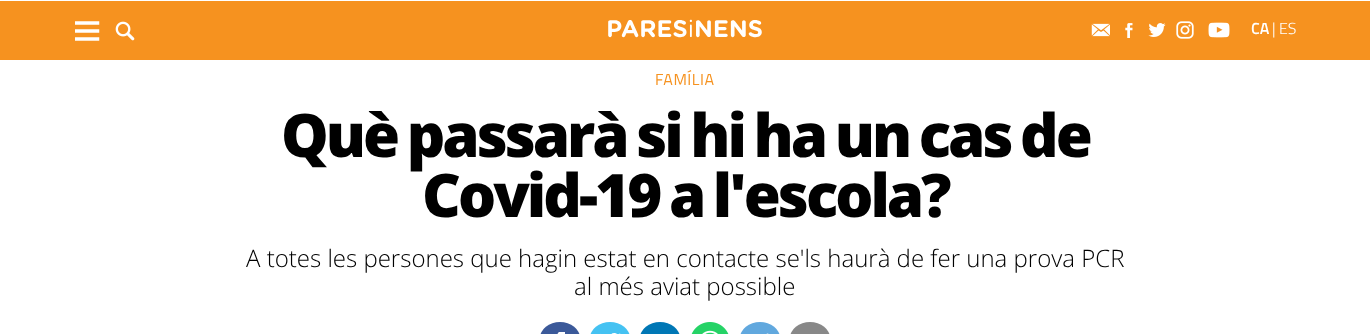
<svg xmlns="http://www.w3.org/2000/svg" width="1370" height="334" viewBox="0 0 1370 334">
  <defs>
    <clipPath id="clip1"><path d="M75 21V41H99.5V21Z"/></clipPath>
  </defs>
  <rect width="100%" height="100%" fill="rgb(255,255,255)"/>
  <rect x="0" y="1" width="1370" height="59" fill="rgb(246,146,31)"/>
  <image x="608" y="19" width="154" height="19" href="pic1.png"/>
  <g clip-path="url(#clip1)">
    <path d="M75 23H99.5M75 31H99.5M75 39H99.5" fill="none" stroke="rgb(255,255,255)" stroke-width="3.4"/>
  </g>
  <image x="115" y="21" width="20" height="20" href="pic2.png"/>
  <image x="1091" y="23" width="19" height="14" href="pic3.png"/>
  <image x="1125" y="23" width="8" height="15" href="pic4.png"/>
  <image x="1148" y="23" width="18" height="14" href="pic5.png"/>
  <image x="1176" y="21" width="18" height="18" href="pic6.png"/>
  <image x="1208" y="22" width="22" height="16" href="pic7.png"/>
  <text x="1251" y="34" font-family="Titillium Web" font-size="16" font-weight="600" fill="rgb(255,255,255)">CA</text>
  <text x="1272" y="34" font-family="Titillium Web" font-size="16" font-weight="300" fill="rgb(255,255,255)">| ES</text>
  <text x="655" y="85" font-family="Titillium Web" font-size="16" letter-spacing="0.5" fill="rgb(246,146,31)">FAMÍLIA</text>
  <g font-family="Open Sans" font-size="60" font-weight="800" letter-spacing="-3" fill="rgb(0,0,0)">
    <text x="281" y="157" word-spacing="-3">Què passarà si hi ha un cas de</text>
    <text x="422" y="217" word-spacing="-3">Covid-19 a l'escola?</text>
  </g>
  <g font-family="Open Sans" font-size="24" font-weight="300" fill="rgb(0,0,0)">
    <text x="246" y="267">A totes les persones que hagin estat en contacte se'ls haurà de fer una prova PCR</text>
    <text x="574" y="295">al més aviat possible</text>
  </g>
  <rect x="540" y="322" width="40" height="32" rx="20" fill="rgb(59,89,153)"/>
  <image x="557" y="332" width="8" height="2" href="pic8.png"/>
  <rect x="590" y="322" width="40" height="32" rx="20" fill="rgb(69,194,242)"/>
  <image x="600" y="333" width="21" height="1" href="pic9.png"/>
  <rect x="640" y="322" width="40" height="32" rx="20" fill="rgb(0,119,181)"/>
  <image x="691" y="322" width="38" height="12" href="pic10.png"/>
  <rect x="740" y="322" width="40" height="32" rx="20" fill="rgb(97,168,222)"/>
  <image x="766" y="333" width="3" height="1" href="pic11.png"/>
  <rect x="790" y="322" width="40" height="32" rx="20" fill="rgb(136,136,136)"/>
</svg>
